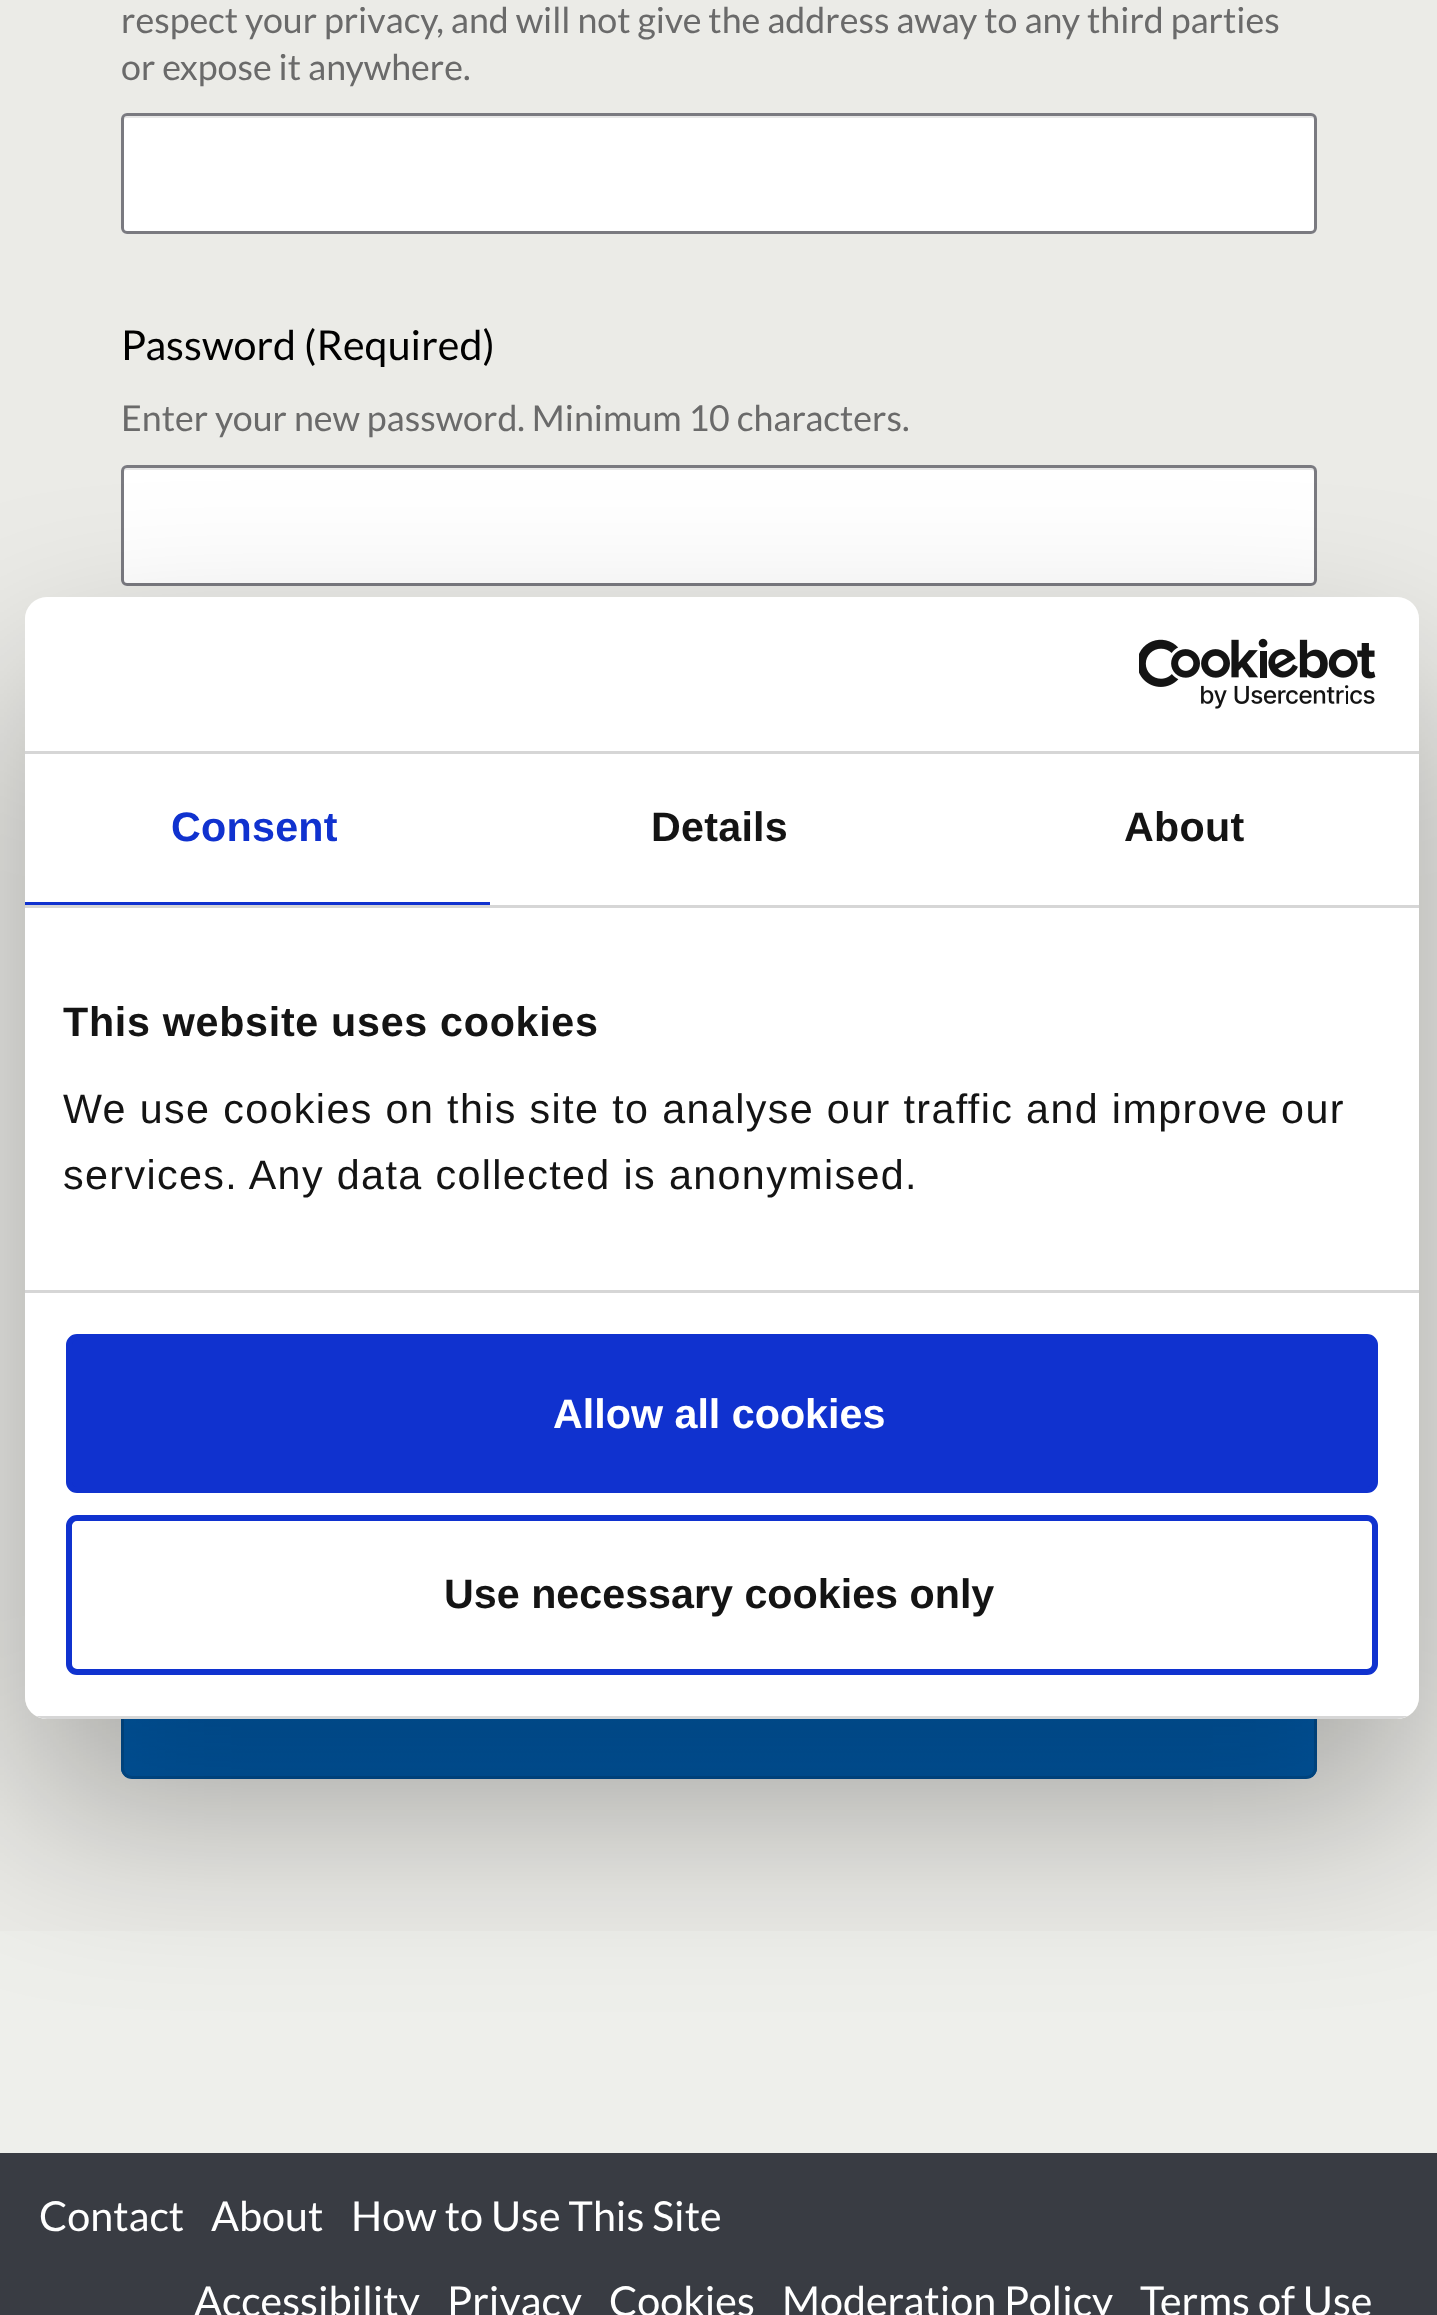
<svg xmlns="http://www.w3.org/2000/svg" width="1437" height="2315" viewBox="0 0 1437 2315">
  <defs>
    <clipPath id="clip1"><rect x="121" y="1653" width="1196" height="126" rx="11"/></clipPath>
    <linearGradient id="g1" gradientUnits="userSpaceOnUse" x1="719" y1="1656" x2="719" y2="1777"><stop offset="0" stop-color="rgb(0,101,189)"/><stop offset="1" stop-color="rgb(0,91,170)"/></linearGradient>
    <clipPath id="clip2"><path d="M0 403H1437V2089H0ZM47 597H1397C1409 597 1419 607 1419 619V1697C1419 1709 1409 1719 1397 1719H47C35 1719 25 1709 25 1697V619C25 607 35 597 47 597Z" clip-rule="evenodd"/></clipPath>
    <clipPath id="clip3"><rect x="25" y="597" width="1394" height="1122" rx="22"/></clipPath>
  </defs>
  <rect width="100%" height="100%" fill="rgb(238,239,235)"/>
  <rect x="0" y="0" width="1437" height="1931" fill="rgb(235,235,231)"/>
  <g font-family="Lato" font-size="35.75" fill="rgb(106,106,106)">
    <text>
      <tspan x="121" y="33">respect your privacy, and will not give the address away to any third parties</tspan>
      <tspan x="121" y="80">or expose it anywhere.</tspan>
    </text>
  </g>
  <rect x="121" y="113" width="1196" height="121" rx="6" fill="rgb(255,255,255)"/>
  <path d="M126 118H1312C1313 118 1314 119 1314 121V230C1315 230 1315 229 1315 228V119C1315 117 1314 116 1312 116H127C125 116 124 117 124 119V121C124 119 125 118 126 118Z" fill="rgb(232,232,232)"/>
  <rect x="122.5" y="114.5" width="1193" height="118" rx="4.5" fill="none" stroke="rgb(122,122,128)" stroke-width="3"/>
  <text x="121" y="360" font-family="Lato" font-size="41.25" fill="rgb(0,0,0)">Password (Required)</text>
  <text x="121" y="431" font-family="Lato" font-size="35.75" fill="rgb(106,106,106)">Enter your new password. Minimum 10 characters.</text>
  <rect x="121" y="465" width="1196" height="121" rx="6" fill="rgb(255,255,255)"/>
  <path d="M126 470H1312C1313 470 1314 471 1314 473V582C1315 582 1315 581 1315 580V471C1315 469 1314 468 1312 468H127C125 468 124 469 124 471V473C124 471 125 470 126 470Z" fill="rgb(232,232,232)"/>
  <rect x="122.5" y="466.5" width="1193" height="118" rx="4.5" fill="none" stroke="rgb(122,122,128)" stroke-width="3"/>
  <g clip-path="url(#clip1)">
    <rect x="121" y="1719" width="1196" height="58" fill="url(#g1)"/>
  </g>
  <rect x="122.5" y="1654.5" width="1193" height="123" rx="9.5" fill="none" stroke="rgb(0,81,151)" stroke-width="3"/>
  <g clip-path="url(#clip2)">
    <rect x="25" y="685" width="1394" height="1122" rx="22" fill="rgba(0,0,0,0.3)" filter="blur(93.5px)"/>
  </g>
  <rect x="25" y="597" width="1394" height="1122" rx="22" fill="rgb(255,255,255)"/>
  <rect x="25" y="751" width="1394" height="3" fill="rgb(214,214,214)"/>
  <image x="1139" y="638" width="237" height="71" href="pic1.png"/>
  <rect x="25" y="905" width="1394" height="3" fill="rgb(214,214,214)"/>
  <rect x="25" y="902" width="465" height="3" fill="rgb(16,50,207)"/>
  <text x="171" y="841" font-family="Liberation Sans" font-size="41.25" font-weight="bold" letter-spacing="0.25" fill="rgb(16,50,207)">Consent</text>
  <g font-family="Liberation Sans" font-size="41.25" font-weight="bold" letter-spacing="0.25" fill="rgb(20,20,20)">
    <text x="651" y="841">Details</text>
    <text x="1124" y="841">About</text>
  </g>
  <rect x="25" y="1290" width="1394" height="3" fill="rgb(214,214,214)"/>
  <text x="63" y="1036" font-family="Liberation Sans" font-size="41.25" font-weight="bold" letter-spacing="0.7" fill="rgb(20,20,20)">This website uses cookies</text>
  <g font-family="Liberation Sans" font-size="41.25" letter-spacing="1.38" fill="rgb(20,20,20)">
    <text>
      <tspan x="63" y="1123">We use cookies on this site to analyse our traffic and improve our</tspan>
      <tspan x="63" y="1189">services. Any data collected is anonymised.</tspan>
    </text>
  </g>
  <g clip-path="url(#clip3)">
    <rect x="36" y="1716" width="1372" height="3" fill="rgb(214,214,214)"/>
  </g>
  <rect x="69" y="1337" width="1306" height="153" rx="8" fill="rgb(16,50,207)" stroke="rgb(16,50,207)" stroke-width="6"/>
  <text x="553" y="1428" font-family="Liberation Sans" font-size="41.25" font-weight="bold" fill="rgb(255,255,255)">Allow all cookies</text>
  <rect x="69" y="1518" width="1306" height="154" rx="8" fill="none" stroke="rgb(16,50,207)" stroke-width="6"/>
  <text x="444" y="1608" font-family="Liberation Sans" font-size="41.25" font-weight="bold" fill="rgb(20,20,20)">Use necessary cookies only</text>
  <rect x="0" y="2153" width="1437" height="162" fill="rgb(57,60,67)"/>
  <g font-family="Lato" font-size="41.25" fill="rgb(255,255,255)">
    <text x="39" y="2231">Contact</text>
    <text x="211" y="2231">About</text>
    <text x="351" y="2231">How to Use This Site</text>
    <text x="194" y="2316">Accessibility</text>
    <text x="447" y="2316">Privacy</text>
    <text x="609" y="2316">Cookies</text>
    <text x="782" y="2316">Moderation Policy</text>
    <text x="1140" y="2316">Terms of Use</text>
  </g>
</svg>
